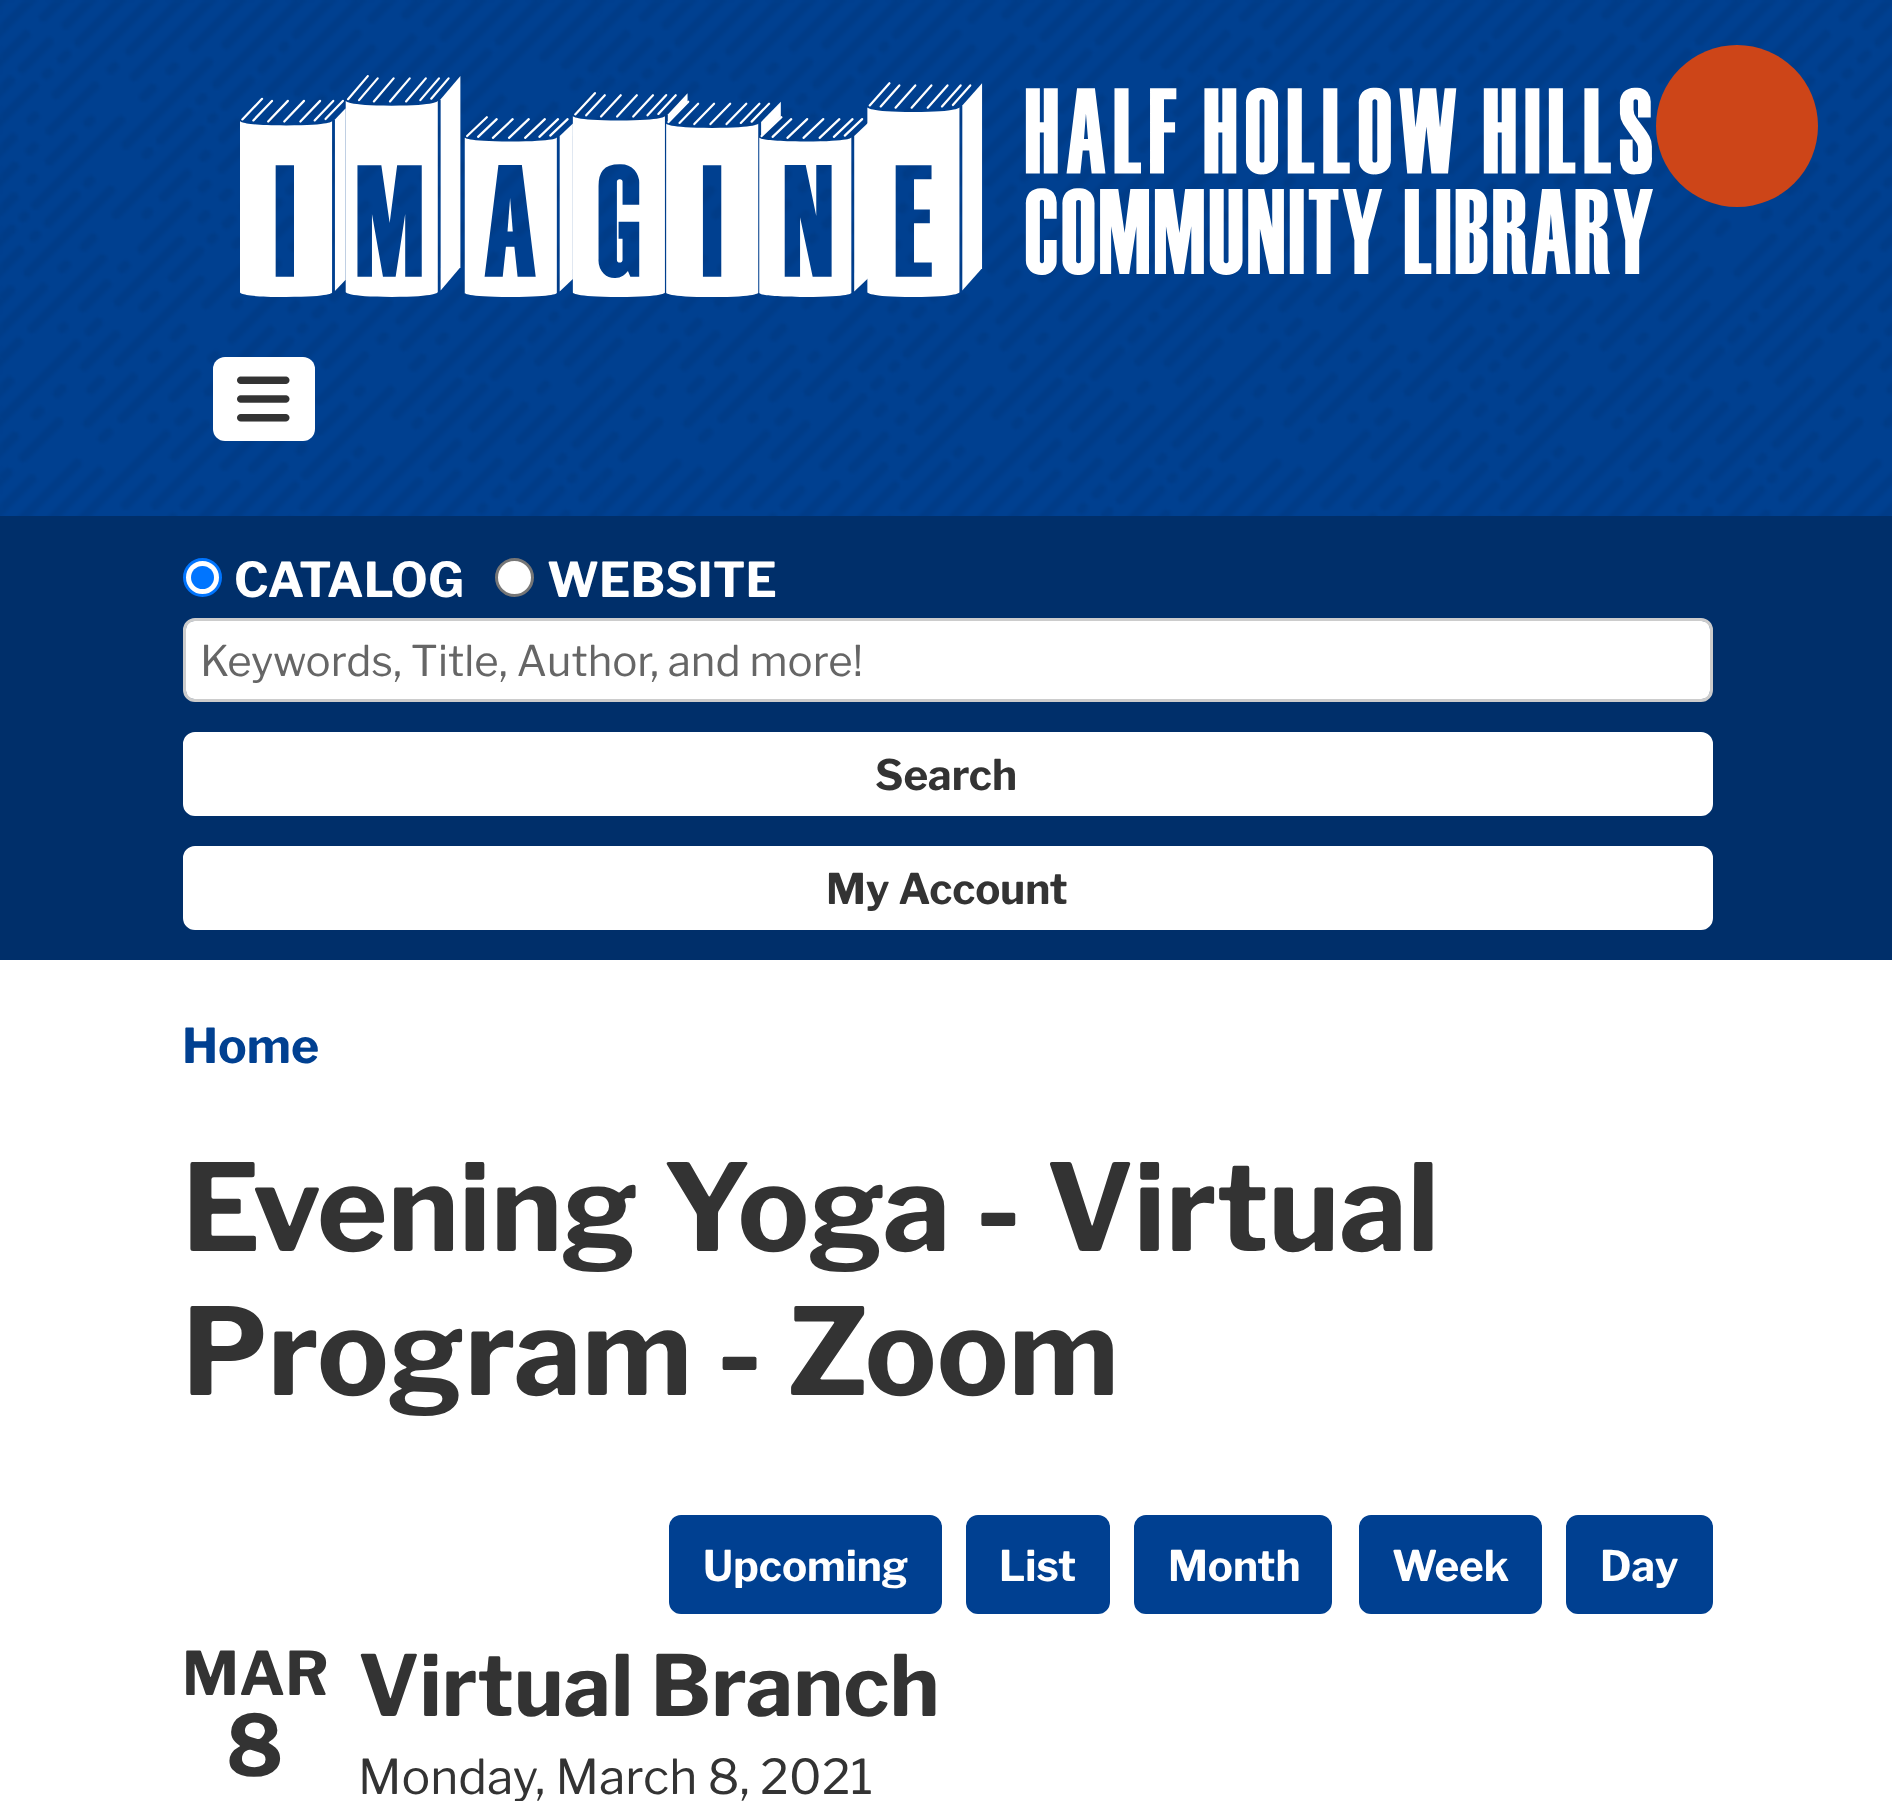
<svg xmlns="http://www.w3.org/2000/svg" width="1892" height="1801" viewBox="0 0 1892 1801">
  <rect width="100%" height="100%" fill="rgb(255,255,255)"/>
  <image x="0" y="0" width="1892" height="516" href="pic1.png"/>
  <circle cx="1737" cy="126" r="81" fill="rgb(205,69,24)"/>
  <image x="240" y="75" width="1413" height="222" href="pic2.png"/>
  <rect x="213" y="357" width="102" height="84" rx="12" fill="rgb(255,255,255)"/>
  <image x="237" y="376" width="53" height="46" href="pic3.png"/>
  <rect x="0" y="516" width="1892" height="444" fill="rgb(0,47,106)"/>
  <circle cx="202.5" cy="577.5" r="18" fill="rgb(255,255,255)" stroke="rgb(0,117,255)" stroke-width="3"/>
  <circle cx="202.5" cy="577.5" r="11.5" fill="rgb(0,117,255)"/>
  <text x="234" y="597" font-family="Libre Franklin" font-size="48" font-weight="bold" fill="rgb(255,255,255)">CATALOG</text>
  <circle cx="514.5" cy="577.5" r="18" fill="rgb(255,255,255)" stroke="rgb(118,118,118)" stroke-width="3"/>
  <text x="547" y="597" font-family="Libre Franklin" font-size="48" font-weight="bold" fill="rgb(255,255,255)">WEBSITE</text>
  <rect x="186" y="621" width="1524" height="78" rx="8" fill="rgb(255,255,255)"/>
  <rect x="184.5" y="619.5" width="1527" height="81" rx="10.5" fill="none" stroke="rgb(204,204,204)" stroke-width="3"/>
  <text x="200" y="676" font-family="Libre Franklin" font-size="42" fill="rgb(102,102,102)">Keywords, Title, Author, and more!</text>
  <rect x="184.5" y="733.5" width="1527" height="81" rx="10.5" fill="rgb(255,255,255)" stroke="rgb(255,255,255)" stroke-width="3"/>
  <text x="875" y="790" font-family="Libre Franklin" font-size="42" font-weight="bold" fill="rgb(51,51,51)">Search</text>
  <rect x="184.5" y="847.5" width="1527" height="81" rx="10.5" fill="rgb(255,255,255)" stroke="rgb(255,255,255)" stroke-width="3"/>
  <text x="826" y="904" font-family="Libre Franklin" font-size="42" font-weight="bold" fill="rgb(51,51,51)">My Account</text>
  <text x="182" y="1063" font-family="Libre Franklin" font-size="48" font-weight="bold" fill="rgb(0,64,145)">Home</text>
  <g font-family="Libre Franklin" font-size="120" font-weight="bold" fill="rgb(51,51,51)">
    <text>
      <tspan x="182" y="1251">Evening Yoga - Virtual</tspan>
      <tspan x="182" y="1395">Program - Zoom</tspan>
    </text>
  </g>
  <rect x="670.5" y="1516.5" width="270" height="96" rx="10.5" fill="rgb(0,64,145)" stroke="rgb(0,64,145)" stroke-width="3"/>
  <text x="703" y="1581" font-family="Libre Franklin" font-size="42" font-weight="bold" fill="rgb(255,255,255)">Upcoming</text>
  <rect x="967.5" y="1516.5" width="141" height="96" rx="10.5" fill="rgb(0,64,145)" stroke="rgb(0,64,145)" stroke-width="3"/>
  <text x="999" y="1581" font-family="Libre Franklin" font-size="42" font-weight="bold" fill="rgb(255,255,255)">List</text>
  <rect x="1135.5" y="1516.5" width="195" height="96" rx="10.5" fill="rgb(0,64,145)" stroke="rgb(0,64,145)" stroke-width="3"/>
  <text x="1168" y="1581" font-family="Libre Franklin" font-size="42" font-weight="bold" fill="rgb(255,255,255)">Month</text>
  <rect x="1360.5" y="1516.5" width="180" height="96" rx="10.5" fill="rgb(0,64,145)" stroke="rgb(0,64,145)" stroke-width="3"/>
  <text x="1392" y="1581" font-family="Libre Franklin" font-size="42" font-weight="bold" fill="rgb(255,255,255)">Week</text>
  <rect x="1567.5" y="1516.5" width="144" height="96" rx="10.5" fill="rgb(0,64,145)" stroke="rgb(0,64,145)" stroke-width="3"/>
  <text x="1600" y="1581" font-family="Libre Franklin" font-size="42" font-weight="bold" fill="rgb(255,255,255)">Day</text>
  <text x="182" y="1695" font-family="Libre Franklin" font-size="60" font-weight="bold" fill="rgb(51,51,51)">MAR</text>
  <g font-family="Libre Franklin" font-size="84" font-weight="bold" fill="rgb(51,51,51)">
    <text x="226" y="1776">8</text>
    <text x="358" y="1716">Virtual Branch</text>
  </g>
  <text x="358" y="1794" font-family="Libre Franklin" font-size="48" fill="rgb(51,51,51)">Monday, March 8, 2021</text>
</svg>
